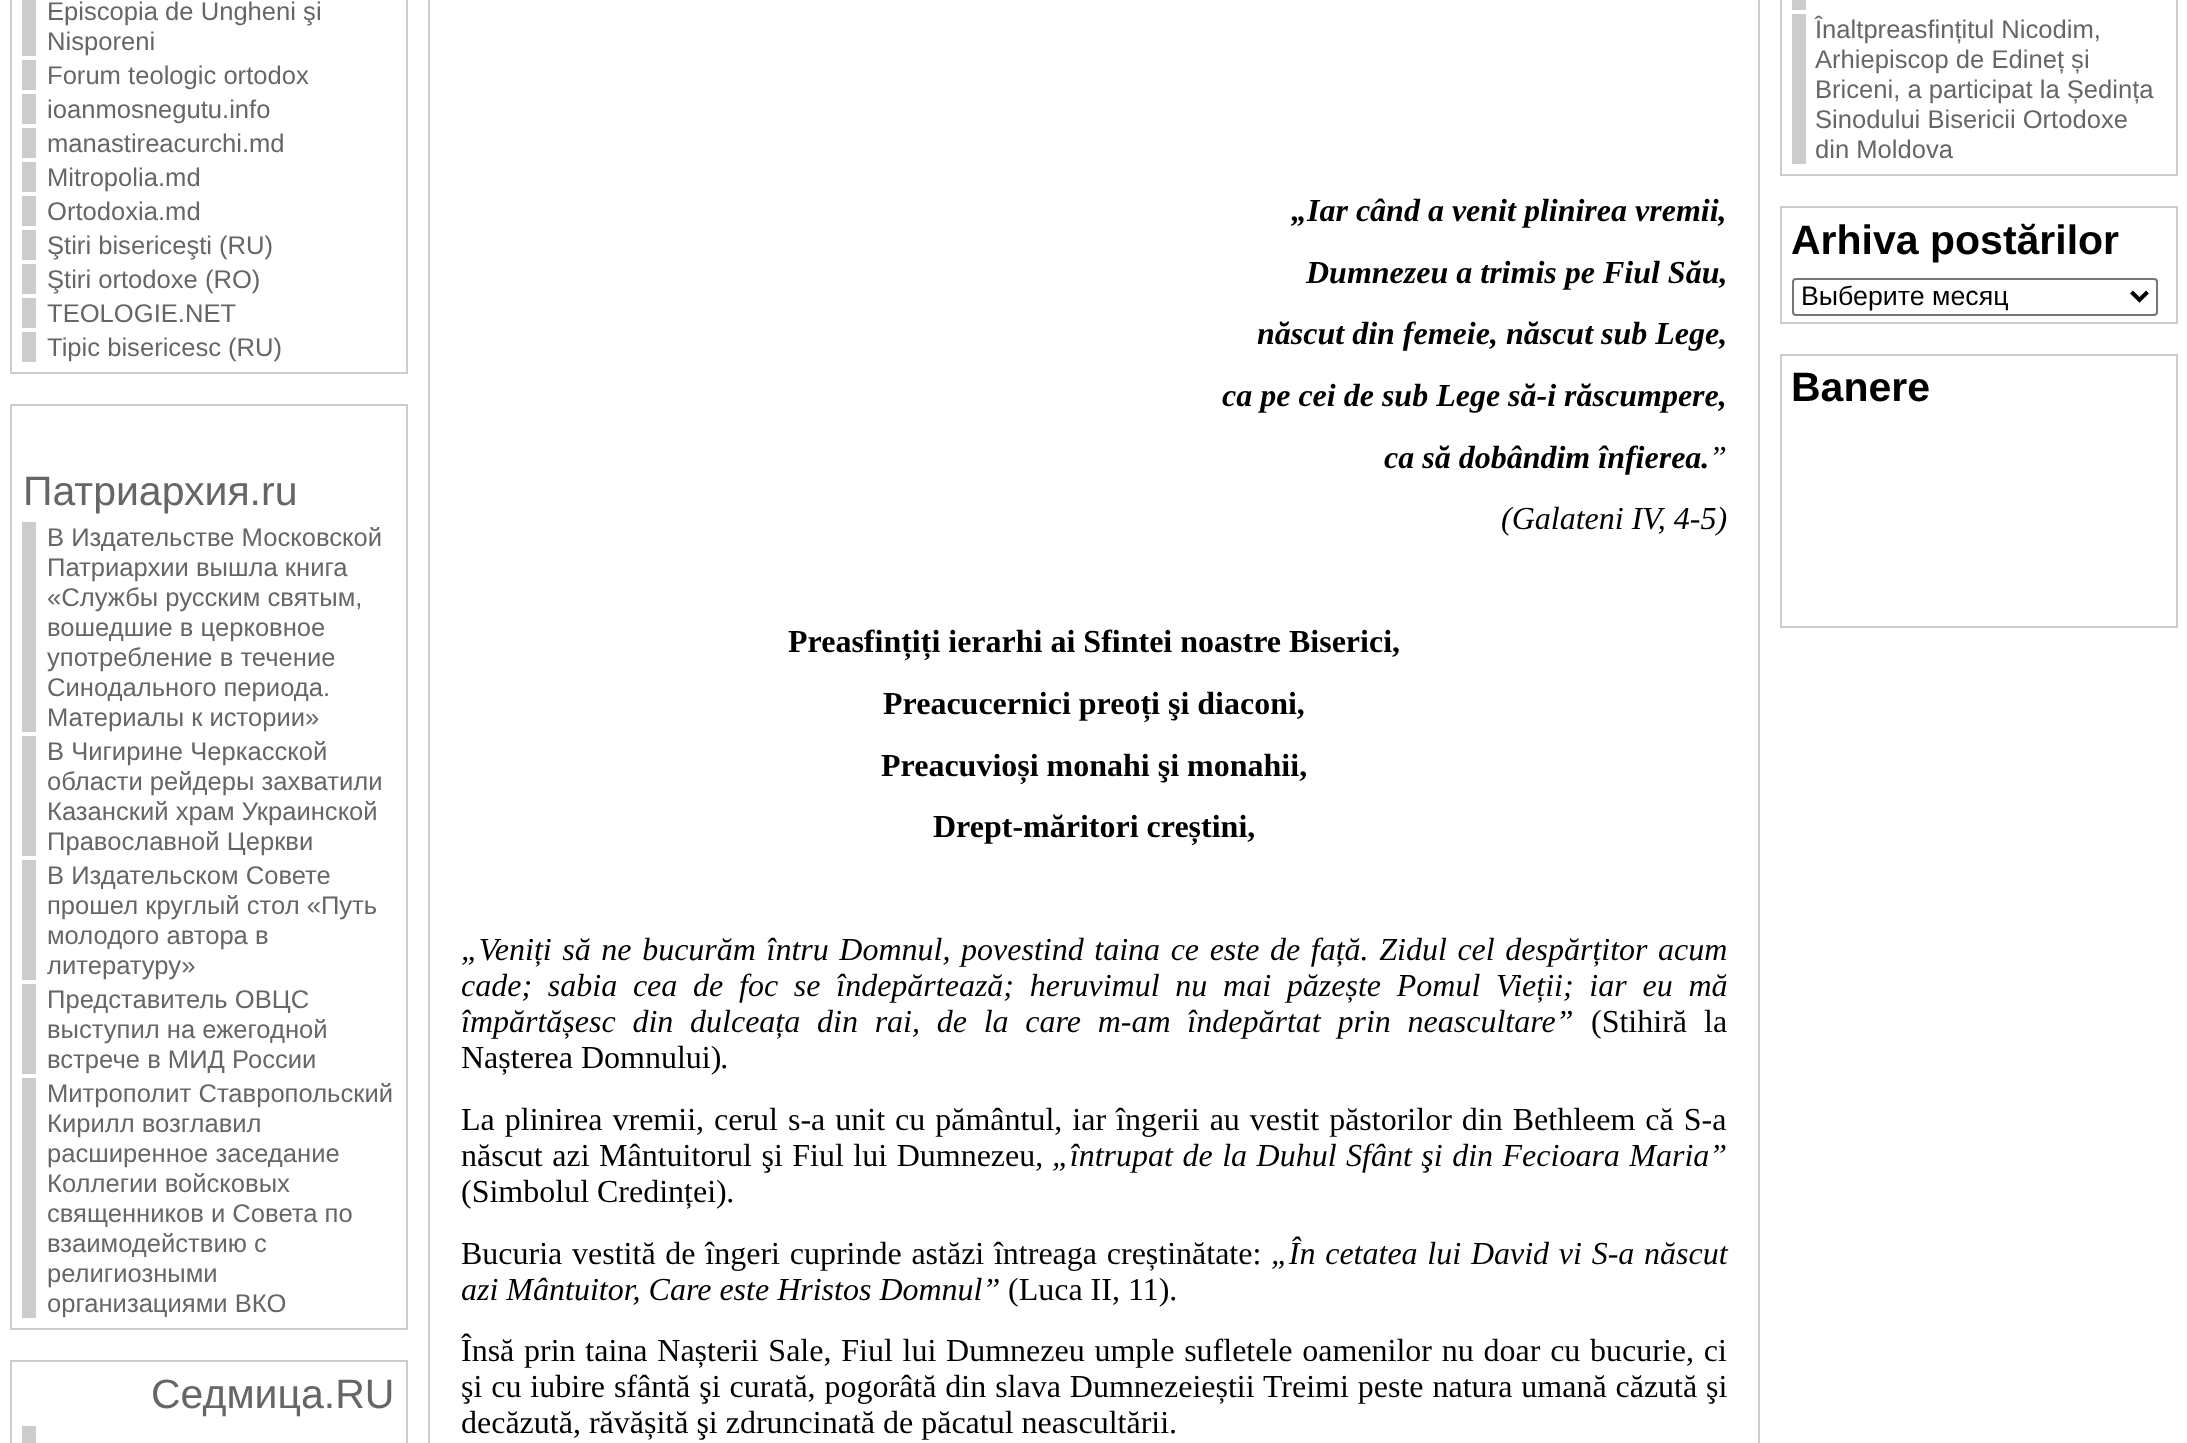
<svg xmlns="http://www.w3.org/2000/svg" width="2187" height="1443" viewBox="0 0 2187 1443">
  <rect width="100%" height="100%" fill="rgb(255,255,255)"/>
  <rect x="428" y="0" width="2" height="1443" fill="rgb(204,204,204)"/>
  <rect x="11" y="-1" width="396" height="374" fill="none" stroke="rgb(204,204,204)" stroke-width="2"/>
  <rect x="22" y="0" width="14" height="56" fill="rgb(204,204,204)"/>
  <g font-family="Liberation Sans" font-size="25.6" fill="rgb(102,102,102)">
    <text>
      <tspan x="47" y="20">Episcopia de Ungheni şi</tspan>
      <tspan x="47" y="50">Nisporeni</tspan>
    </text>
  </g>
  <rect x="22" y="60" width="14" height="30" fill="rgb(204,204,204)"/>
  <text x="47" y="84" font-family="Liberation Sans" font-size="25.6" fill="rgb(102,102,102)">Forum teologic ortodox</text>
  <rect x="22" y="94" width="14" height="30" fill="rgb(204,204,204)"/>
  <text x="47" y="118" font-family="Liberation Sans" font-size="25.6" fill="rgb(102,102,102)">ioanmosnegutu.info</text>
  <rect x="22" y="128" width="14" height="30" fill="rgb(204,204,204)"/>
  <text x="47" y="152" font-family="Liberation Sans" font-size="25.6" fill="rgb(102,102,102)">manastireacurchi.md</text>
  <rect x="22" y="162" width="14" height="30" fill="rgb(204,204,204)"/>
  <text x="47" y="186" font-family="Liberation Sans" font-size="25.6" fill="rgb(102,102,102)">Mitropolia.md</text>
  <rect x="22" y="196" width="14" height="30" fill="rgb(204,204,204)"/>
  <text x="47" y="220" font-family="Liberation Sans" font-size="25.6" fill="rgb(102,102,102)">Ortodoxia.md</text>
  <rect x="22" y="230" width="14" height="30" fill="rgb(204,204,204)"/>
  <text x="47" y="254" font-family="Liberation Sans" font-size="25.6" fill="rgb(102,102,102)">Ştiri bisericeşti (RU)</text>
  <rect x="22" y="264" width="14" height="30" fill="rgb(204,204,204)"/>
  <text x="47" y="288" font-family="Liberation Sans" font-size="25.6" fill="rgb(102,102,102)">Ştiri ortodoxe (RO)</text>
  <rect x="22" y="298" width="14" height="30" fill="rgb(204,204,204)"/>
  <text x="47" y="322" font-family="Liberation Sans" font-size="25.6" fill="rgb(102,102,102)">TEOLOGIE.NET</text>
  <rect x="22" y="332" width="14" height="30" fill="rgb(204,204,204)"/>
  <text x="47" y="356" font-family="Liberation Sans" font-size="25.6" fill="rgb(102,102,102)">Tipic bisericesc (RU)</text>
  <rect x="11" y="405" width="396" height="924" fill="none" stroke="rgb(204,204,204)" stroke-width="2"/>
  <text x="23" y="505" font-family="Liberation Sans" font-size="41" fill="rgb(102,102,102)">Патриархия.ru</text>
  <rect x="22" y="522" width="14" height="210" fill="rgb(204,204,204)"/>
  <g font-family="Liberation Sans" font-size="25.6" fill="rgb(102,102,102)">
    <text>
      <tspan x="47" y="546">В Издательстве Московской</tspan>
      <tspan x="47" y="576">Патриархии вышла книга</tspan>
      <tspan x="47" y="606">«Службы русским святым,</tspan>
      <tspan x="47" y="636">вошедшие в церковное</tspan>
      <tspan x="47" y="666">употребление в течение</tspan>
      <tspan x="47" y="696">Синодального периода.</tspan>
      <tspan x="47" y="726">Материалы к истории»</tspan>
    </text>
  </g>
  <rect x="22" y="736" width="14" height="120" fill="rgb(204,204,204)"/>
  <g font-family="Liberation Sans" font-size="25.6" fill="rgb(102,102,102)">
    <text>
      <tspan x="47" y="760">В Чигирине Черкасской</tspan>
      <tspan x="47" y="790">области рейдеры захватили</tspan>
      <tspan x="47" y="820">Казанский храм Украинской</tspan>
      <tspan x="47" y="850">Православной Церкви</tspan>
    </text>
  </g>
  <rect x="22" y="860" width="14" height="120" fill="rgb(204,204,204)"/>
  <g font-family="Liberation Sans" font-size="25.6" fill="rgb(102,102,102)">
    <text>
      <tspan x="47" y="884">В Издательском Совете</tspan>
      <tspan x="47" y="914">прошел круглый стол «Путь</tspan>
      <tspan x="47" y="944">молодого автора в</tspan>
      <tspan x="47" y="974">литературу»</tspan>
    </text>
  </g>
  <rect x="22" y="984" width="14" height="90" fill="rgb(204,204,204)"/>
  <g font-family="Liberation Sans" font-size="25.6" fill="rgb(102,102,102)">
    <text>
      <tspan x="47" y="1008">Представитель ОВЦС</tspan>
      <tspan x="47" y="1038">выступил на ежегодной</tspan>
      <tspan x="47" y="1068">встрече в МИД России</tspan>
    </text>
  </g>
  <rect x="22" y="1078" width="14" height="240" fill="rgb(204,204,204)"/>
  <g font-family="Liberation Sans" font-size="25.6" fill="rgb(102,102,102)">
    <text>
      <tspan x="47" y="1102">Митрополит Ставропольский</tspan>
      <tspan x="47" y="1132">Кирилл возглавил</tspan>
      <tspan x="47" y="1162">расширенное заседание</tspan>
      <tspan x="47" y="1192">Коллегии войсковых</tspan>
      <tspan x="47" y="1222">священников и Совета по</tspan>
      <tspan x="47" y="1252">взаимодействию с</tspan>
      <tspan x="47" y="1282">религиозными</tspan>
      <tspan x="47" y="1312">организациями ВКО</tspan>
    </text>
  </g>
  <rect x="11" y="1361" width="396" height="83" fill="none" stroke="rgb(204,204,204)" stroke-width="2"/>
  <text x="151" y="1408" font-family="Liberation Sans" font-size="41" fill="rgb(102,102,102)">Седмица.RU</text>
  <rect x="22" y="1426" width="14" height="17" fill="rgb(204,204,204)"/>
  <g font-family="Liberation Serif" font-size="32" font-weight="bold" font-style="italic" fill="rgb(0,0,0)">
    <text x="1291" y="221">„Iar când a venit plinirea vremii,</text>
    <text x="1306" y="283">Dumnezeu a trimis pe Fiul Său,</text>
    <text x="1257" y="344">născut din femeie, născut sub Lege,</text>
    <text x="1222" y="406">ca pe cei de sub Lege să-i răscumpere,</text>
    <text x="1384" y="468">ca să dobândim înfierea.</text>
  </g>
  <g font-family="Liberation Serif" font-size="32" font-style="italic" fill="rgb(0,0,0)">
    <text x="1709" y="468">”</text>
    <text x="1501" y="529">(Galateni IV, 4-5)</text>
  </g>
  <g font-family="Liberation Serif" font-size="32" font-weight="bold" fill="rgb(0,0,0)">
    <text x="788" y="652">Preasfințiți ierarhi ai Sfintei noastre Biserici,</text>
    <text x="883" y="714">Preacucernici preoți şi diaconi,</text>
    <text x="881" y="776">Preacuvioși monahi şi monahii,</text>
    <text x="933" y="837">Drept-măritori creștini,</text>
  </g>
  <g font-family="Liberation Serif" font-size="32" font-style="italic" fill="rgb(0,0,0)">
    <text>
      <tspan x="461" y="960" word-spacing="2.6">„Veniți să ne bucurăm întru Domnul, povestind taina ce este de față. Zidul cel despărțitor acum</tspan>
      <tspan x="461" y="996" word-spacing="7.75">cade; sabia cea de foc se îndepărtează; heruvimul nu mai păzește Pomul Vieții; iar eu mă</tspan>
      <tspan x="461" y="1032" word-spacing="8.75">împărtășesc din dulceața din rai, de la care m-am îndepărtat prin neascultare”</tspan>
    </text>
  </g>
  <g font-family="Liberation Serif" font-size="32" fill="rgb(0,0,0)">
    <text x="1591" y="1032" word-spacing="9">(Stihiră la</text>
    <text x="461" y="1068">Nașterea Domnului)</text>
  </g>
  <text x="721" y="1068" font-family="Liberation Serif" font-size="32" font-style="italic" fill="rgb(0,0,0)">.</text>
  <g font-family="Liberation Serif" font-size="32" fill="rgb(0,0,0)">
    <text>
      <tspan x="461" y="1130" word-spacing="2">La plinirea vremii, cerul s-a unit cu pământul, iar îngerii au vestit păstorilor din Bethleem că S-a</tspan>
      <tspan x="461" y="1166" word-spacing="1.5">născut azi Mântuitorul şi Fiul lui Dumnezeu,</tspan>
    </text>
  </g>
  <text x="1052" y="1166" word-spacing="1.5" font-family="Liberation Serif" font-size="32" font-style="italic" fill="rgb(0,0,0)">„întrupat de la Duhul Sfânt şi din Fecioara Maria”</text>
  <text x="461" y="1202" font-family="Liberation Serif" font-size="32" fill="rgb(0,0,0)">(Simbolul Credinței)</text>
  <text x="727" y="1202" font-family="Liberation Serif" font-size="32" font-style="italic" fill="rgb(0,0,0)">.</text>
  <text x="461" y="1264" word-spacing="1.75" font-family="Liberation Serif" font-size="32" fill="rgb(0,0,0)">Bucuria vestită de îngeri cuprinde astăzi întreaga creștinătate:</text>
  <g font-family="Liberation Serif" font-size="32" font-style="italic" fill="rgb(0,0,0)">
    <text x="1271" y="1264" word-spacing="1.75">„În cetatea lui David vi S-a născut</text>
    <text x="461" y="1300">azi Mântuitor, Care este Hristos Domnul”</text>
  </g>
  <text x="1008" y="1300" font-family="Liberation Serif" font-size="32" fill="rgb(0,0,0)">(Luca II, 11)</text>
  <text x="1170" y="1300" font-family="Liberation Serif" font-size="32" font-style="italic" fill="rgb(0,0,0)">.</text>
  <g font-family="Liberation Serif" font-size="32" fill="rgb(0,0,0)">
    <text>
      <tspan x="461" y="1361" word-spacing="1.75">Însă prin taina Nașterii Sale, Fiul lui Dumnezeu umple sufletele oamenilor nu doar cu bucurie, ci</tspan>
      <tspan x="461" y="1397" word-spacing="0.9">şi cu iubire sfântă şi curată, pogorâtă din slava Dumnezeieștii Treimi peste natura umană căzută şi</tspan>
      <tspan x="461" y="1433">decăzută, răvășită şi zdruncinată de păcatul neascultării.</tspan>
    </text>
  </g>
  <rect x="1758" y="0" width="2" height="1443" fill="rgb(204,204,204)"/>
  <rect x="1781" y="-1" width="396" height="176" fill="none" stroke="rgb(204,204,204)" stroke-width="2"/>
  <rect x="1792" y="0" width="14" height="10" fill="rgb(204,204,204)"/>
  <rect x="1792" y="14" width="14" height="150" fill="rgb(204,204,204)"/>
  <g font-family="Liberation Sans" font-size="25.6" fill="rgb(102,102,102)">
    <text>
      <tspan x="1815" y="38">Înaltpreasfințitul Nicodim,</tspan>
      <tspan x="1815" y="68">Arhiepiscop de Edineț și</tspan>
      <tspan x="1815" y="98">Briceni, a participat la Ședința</tspan>
      <tspan x="1815" y="128">Sinodului Bisericii Ortodoxe</tspan>
      <tspan x="1815" y="158">din Moldova</tspan>
    </text>
  </g>
  <rect x="1781" y="207" width="396" height="116" fill="none" stroke="rgb(204,204,204)" stroke-width="2"/>
  <text x="1791" y="254" font-family="Liberation Sans" font-size="41" font-weight="bold" fill="rgb(0,0,0)">Arhiva postărilor</text>
  <rect x="1793" y="279" width="364" height="36" rx="3" fill="none" stroke="rgb(118,118,118)" stroke-width="2"/>
  <path d="M2131.5 292L2139.5 300L2147.5 292" fill="none" stroke="rgb(0,0,0)" stroke-width="4"/>
  <text x="1801" y="305" font-family="Liberation Sans" font-size="26.75" fill="rgb(0,0,0)">Выберите месяц</text>
  <rect x="1781" y="355" width="396" height="272" fill="none" stroke="rgb(204,204,204)" stroke-width="2"/>
  <text x="1791" y="401" font-family="Liberation Sans" font-size="41" font-weight="bold" fill="rgb(0,0,0)">Banere</text>
</svg>
